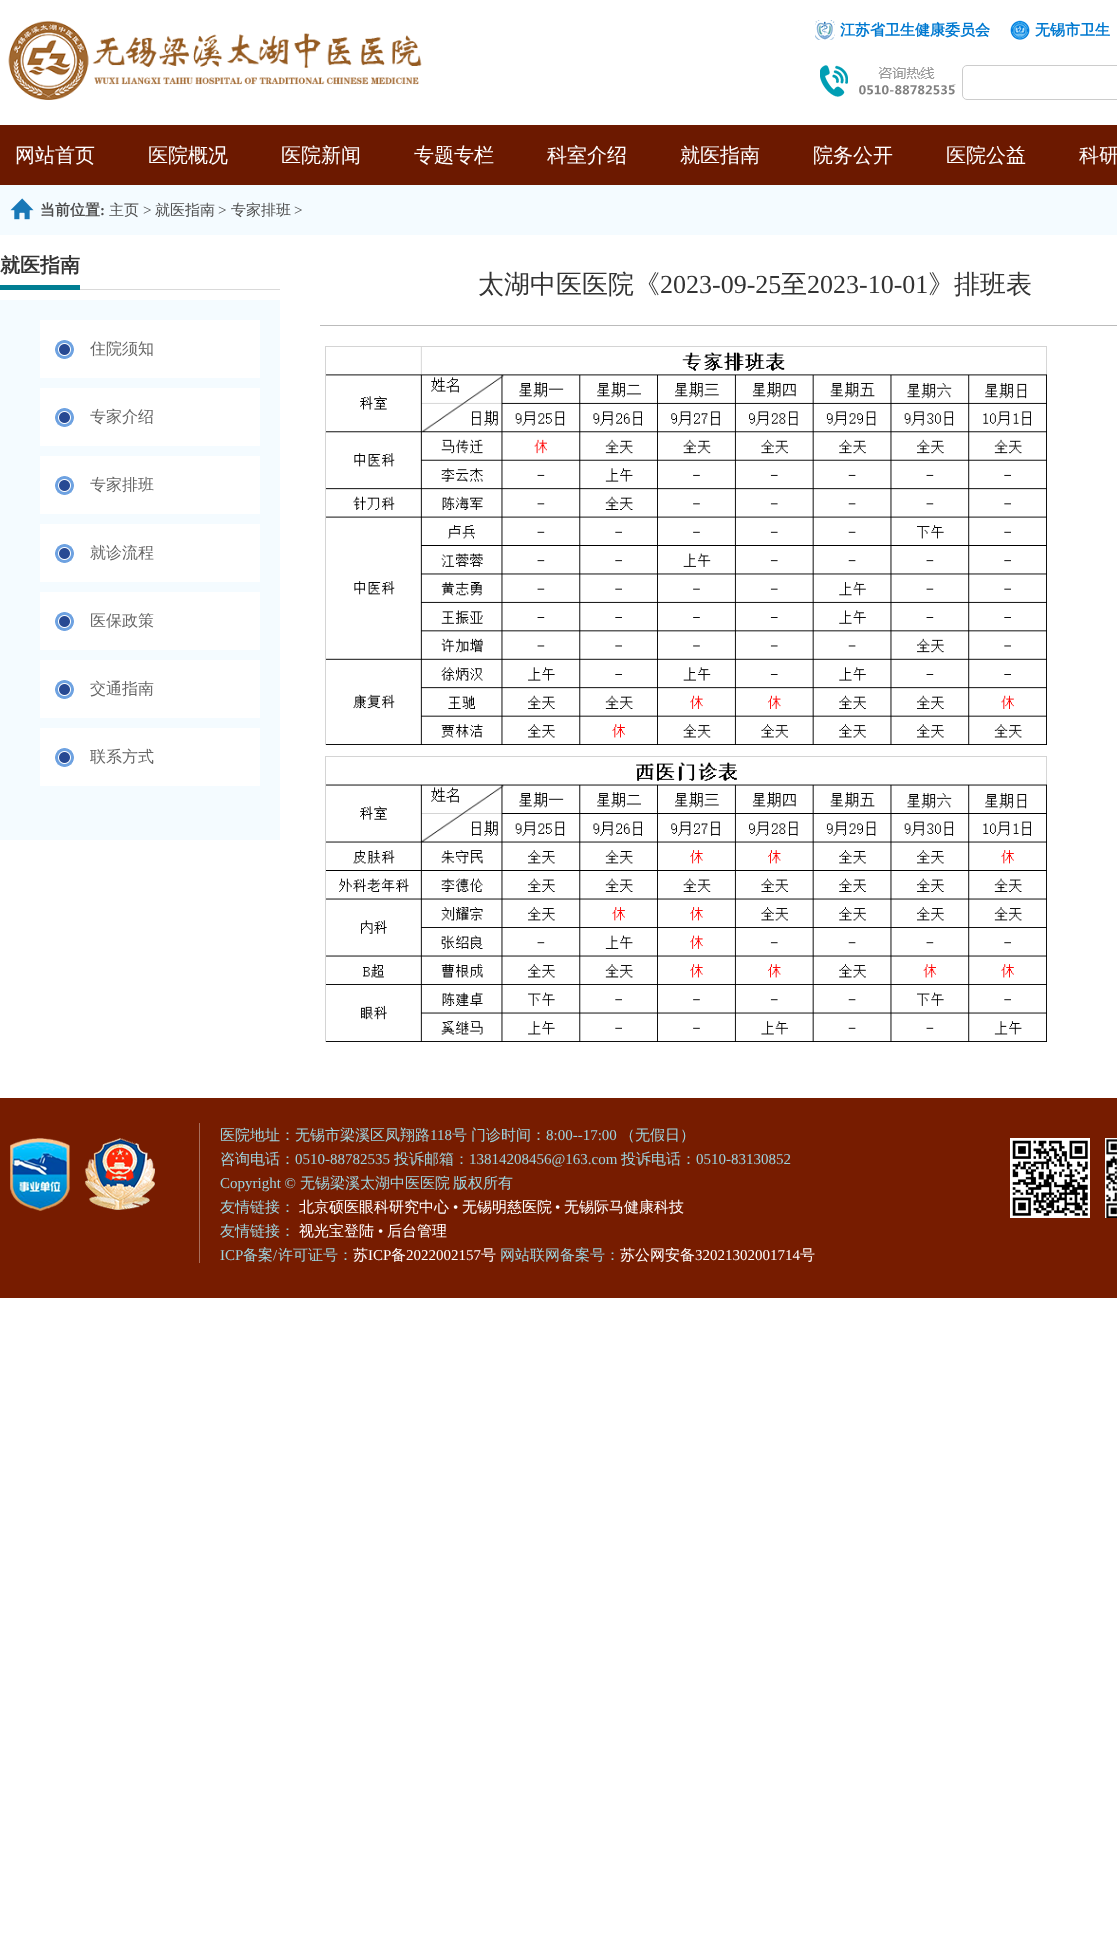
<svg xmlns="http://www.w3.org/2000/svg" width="1117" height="1933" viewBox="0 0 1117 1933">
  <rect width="100%" height="100%" fill="rgb(255,255,255)"/>
  <image x="8" y="20" width="414" height="80" href="pic1.png"/>
  <image x="815" y="20" width="20" height="20" href="pic2.png"/>
  <text x="840" y="35" font-family="WenQuanYi Zen Hei" font-size="15" font-weight="bold" fill="rgb(0,121,208)">江苏省卫生健康委员会</text>
  <image x="1010" y="20" width="20" height="20" href="pic3.png"/>
  <text x="1035" y="35" font-family="WenQuanYi Zen Hei" font-size="15" font-weight="bold" fill="rgb(0,121,208)">无锡市卫生</text>
  <image x="820" y="65" width="136" height="32" href="pic4.png"/>
  <rect x="962.5" y="65.5" width="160" height="34" rx="4.5" fill="none" stroke="rgb(204,204,204)"/>
  <rect x="0" y="125" width="1117" height="60" fill="rgb(108,25,0)"/>
  <g font-family="WenQuanYi Zen Hei" font-size="20" font-weight="500" fill="rgb(255,255,255)">
    <text x="15" y="162">网站首页</text>
    <text x="148" y="162">医院概况</text>
    <text x="281" y="162">医院新闻</text>
    <text x="414" y="162">专题专栏</text>
    <text x="547" y="162">科室介绍</text>
    <text x="680" y="162">就医指南</text>
    <text x="813" y="162">院务公开</text>
    <text x="946" y="162">医院公益</text>
    <text x="1079" y="162">科研</text>
  </g>
  <rect x="0" y="185" width="1117" height="50" fill="rgb(244,251,255)"/>
  <image x="10" y="198" width="24" height="22" href="pic5.png"/>
  <text x="40" y="215" font-family="WenQuanYi Zen Hei" font-size="15" font-weight="bold" fill="rgb(77,77,77)">当前位置</text>
  <text x="100" y="215" font-family="Liberation Serif" font-size="15" font-weight="bold" fill="rgb(77,77,77)">:</text>
  <text x="109" y="215" font-family="WenQuanYi Zen Hei" font-size="15" font-weight="500" fill="rgb(77,77,77)">主页</text>
  <text x="143" y="215" font-family="Liberation Serif" font-size="15" fill="rgb(77,77,77)">&gt;</text>
  <text x="155" y="215" font-family="WenQuanYi Zen Hei" font-size="15" font-weight="500" fill="rgb(77,77,77)">就医指南</text>
  <text x="218" y="215" font-family="Liberation Serif" font-size="15" fill="rgb(77,77,77)">&gt;</text>
  <text x="231" y="215" font-family="WenQuanYi Zen Hei" font-size="15" font-weight="500" fill="rgb(77,77,77)">专家排班</text>
  <text x="294" y="215" font-family="Liberation Serif" font-size="15" fill="rgb(77,77,77)">&gt;</text>
  <rect x="80" y="289" width="200" height="1" fill="rgb(217,217,217)"/>
  <rect x="0" y="285" width="80" height="5" fill="rgb(0,126,147)"/>
  <text x="0" y="272" font-family="WenQuanYi Zen Hei" font-size="20" font-weight="bold" fill="rgb(51,51,51)">就医指南</text>
  <rect x="0" y="300" width="280" height="540" fill="rgb(244,251,255)"/>
  <rect x="40" y="320" width="220" height="58" fill="rgb(255,255,255)"/>
  <image x="55" y="340" width="19" height="19" href="pic6.png"/>
  <text x="90" y="354" font-family="WenQuanYi Zen Hei" font-size="16" font-weight="500" fill="rgb(102,102,102)">住院须知</text>
  <rect x="40" y="388" width="220" height="58" fill="rgb(255,255,255)"/>
  <image x="55" y="408" width="19" height="19" href="pic6.png"/>
  <text x="90" y="422" font-family="WenQuanYi Zen Hei" font-size="16" font-weight="500" fill="rgb(102,102,102)">专家介绍</text>
  <rect x="40" y="456" width="220" height="58" fill="rgb(255,255,255)"/>
  <image x="55" y="476" width="19" height="19" href="pic6.png"/>
  <text x="90" y="490" font-family="WenQuanYi Zen Hei" font-size="16" font-weight="500" fill="rgb(102,102,102)">专家排班</text>
  <rect x="40" y="524" width="220" height="58" fill="rgb(255,255,255)"/>
  <image x="55" y="544" width="19" height="19" href="pic6.png"/>
  <text x="90" y="558" font-family="WenQuanYi Zen Hei" font-size="16" font-weight="500" fill="rgb(102,102,102)">就诊流程</text>
  <rect x="40" y="592" width="220" height="58" fill="rgb(255,255,255)"/>
  <image x="55" y="612" width="19" height="19" href="pic6.png"/>
  <text x="90" y="626" font-family="WenQuanYi Zen Hei" font-size="16" font-weight="500" fill="rgb(102,102,102)">医保政策</text>
  <rect x="40" y="660" width="220" height="58" fill="rgb(255,255,255)"/>
  <image x="55" y="680" width="19" height="19" href="pic6.png"/>
  <text x="90" y="694" font-family="WenQuanYi Zen Hei" font-size="16" font-weight="500" fill="rgb(102,102,102)">交通指南</text>
  <rect x="40" y="728" width="220" height="58" fill="rgb(255,255,255)"/>
  <image x="55" y="748" width="19" height="19" href="pic6.png"/>
  <text x="90" y="762" font-family="WenQuanYi Zen Hei" font-size="16" font-weight="500" fill="rgb(102,102,102)">联系方式</text>
  <rect x="320" y="325" width="797" height="1" fill="rgb(187,187,187)"/>
  <text x="478" y="293" font-family="WenQuanYi Zen Hei" font-size="26" font-weight="500" fill="rgb(51,51,51)">太湖中医医院《</text>
  <text x="660" y="293" font-family="Liberation Serif" font-size="26" fill="rgb(51,51,51)">2023-09-25</text>
  <text x="781" y="293" font-family="WenQuanYi Zen Hei" font-size="26" font-weight="500" fill="rgb(51,51,51)">至</text>
  <text x="807" y="293" font-family="Liberation Serif" font-size="26" fill="rgb(51,51,51)">2023-10-01</text>
  <text x="928" y="293" font-family="WenQuanYi Zen Hei" font-size="26" font-weight="500" fill="rgb(51,51,51)">》排班表</text>
  <image x="325" y="346" width="722" height="399" href="pic7.png"/>
  <image x="325" y="756" width="722" height="286" href="pic8.png"/>
  <rect x="0" y="1098" width="1117" height="200" fill="rgb(119,28,0)"/>
  <image x="10" y="1138" width="60" height="73" href="pic9.png"/>
  <image x="85" y="1138" width="70" height="72" href="pic10.png"/>
  <rect x="199" y="1123" width="1" height="140" fill="rgb(168,110,92)"/>
  <text x="220" y="1140" font-family="WenQuanYi Zen Hei" font-size="15" font-weight="500" fill="rgb(157,211,221)">医院地址：无锡市梁溪区凤翔路</text>
  <text x="430" y="1140" font-family="Liberation Serif" font-size="15" fill="rgb(157,211,221)">118</text>
  <g font-family="WenQuanYi Zen Hei" font-size="15" font-weight="500" fill="rgb(157,211,221)">
    <text x="452" y="1140">号</text>
    <text x="471" y="1140">门诊时间：</text>
  </g>
  <text x="546" y="1140" font-family="Liberation Serif" font-size="15" fill="rgb(157,211,221)">8:00--17:00</text>
  <g font-family="WenQuanYi Zen Hei" font-size="15" font-weight="500" fill="rgb(157,211,221)">
    <text x="620" y="1140">（无假日）</text>
    <text x="220" y="1164">咨询电话：</text>
  </g>
  <text x="295" y="1164" font-family="Liberation Serif" font-size="15" fill="rgb(157,211,221)">0510-88782535</text>
  <text x="394" y="1164" font-family="WenQuanYi Zen Hei" font-size="15" font-weight="500" fill="rgb(157,211,221)">投诉邮箱：</text>
  <text x="469" y="1164" font-family="Liberation Serif" font-size="15" fill="rgb(157,211,221)">13814208456@163.com</text>
  <text x="621" y="1164" font-family="WenQuanYi Zen Hei" font-size="15" font-weight="500" fill="rgb(157,211,221)">投诉电话：</text>
  <g font-family="Liberation Serif" font-size="15" fill="rgb(157,211,221)">
    <text x="696" y="1164">0510-83130852</text>
    <text x="220" y="1188">Copyright ©</text>
  </g>
  <g font-family="WenQuanYi Zen Hei" font-size="15" font-weight="500" fill="rgb(157,211,221)">
    <text x="300" y="1188">无锡梁溪太湖中医医院</text>
    <text x="453" y="1188">版权所有</text>
    <text x="220" y="1212">友情链接：</text>
  </g>
  <text x="299" y="1212" font-family="WenQuanYi Zen Hei" font-size="15" font-weight="500" fill="rgb(255,255,255)">北京硕医眼科研究中心</text>
  <text x="453" y="1212" font-family="Liberation Serif" font-size="15" fill="rgb(255,255,255)">•</text>
  <text x="462" y="1212" font-family="WenQuanYi Zen Hei" font-size="15" font-weight="500" fill="rgb(255,255,255)">无锡明慈医院</text>
  <text x="555" y="1212" font-family="Liberation Serif" font-size="15" fill="rgb(255,255,255)">•</text>
  <text x="564" y="1212" font-family="WenQuanYi Zen Hei" font-size="15" font-weight="500" fill="rgb(255,255,255)">无锡际马健康科技</text>
  <text x="220" y="1236" font-family="WenQuanYi Zen Hei" font-size="15" font-weight="500" fill="rgb(157,211,221)">友情链接：</text>
  <text x="299" y="1236" font-family="WenQuanYi Zen Hei" font-size="15" font-weight="500" fill="rgb(255,255,255)">视光宝登陆</text>
  <text x="378" y="1236" font-family="Liberation Serif" font-size="15" fill="rgb(255,255,255)">•</text>
  <text x="387" y="1236" font-family="WenQuanYi Zen Hei" font-size="15" font-weight="500" fill="rgb(255,255,255)">后台管理</text>
  <text x="220" y="1260" font-family="Liberation Serif" font-size="15" fill="rgb(157,211,221)">ICP</text>
  <text x="243" y="1260" font-family="WenQuanYi Zen Hei" font-size="15" font-weight="500" fill="rgb(157,211,221)">备案</text>
  <text x="273" y="1260" font-family="Liberation Serif" font-size="15" fill="rgb(157,211,221)">/</text>
  <text x="278" y="1260" font-family="WenQuanYi Zen Hei" font-size="15" font-weight="500" fill="rgb(157,211,221)">许可证号：</text>
  <text x="353" y="1260" font-family="WenQuanYi Zen Hei" font-size="15" font-weight="500" fill="rgb(255,255,255)">苏</text>
  <text x="368" y="1260" font-family="Liberation Serif" font-size="15" fill="rgb(255,255,255)">ICP</text>
  <text x="391" y="1260" font-family="WenQuanYi Zen Hei" font-size="15" font-weight="500" fill="rgb(255,255,255)">备</text>
  <text x="406" y="1260" font-family="Liberation Serif" font-size="15" fill="rgb(255,255,255)">2022002157</text>
  <text x="481" y="1260" font-family="WenQuanYi Zen Hei" font-size="15" font-weight="500" fill="rgb(255,255,255)">号</text>
  <text x="500" y="1260" font-family="WenQuanYi Zen Hei" font-size="15" font-weight="500" fill="rgb(157,211,221)">网站联网备案号：</text>
  <text x="620" y="1260" font-family="WenQuanYi Zen Hei" font-size="15" font-weight="500" fill="rgb(255,255,255)">苏公网安备</text>
  <text x="695" y="1260" font-family="Liberation Serif" font-size="15" fill="rgb(255,255,255)">32021302001714</text>
  <text x="800" y="1260" font-family="WenQuanYi Zen Hei" font-size="15" font-weight="500" fill="rgb(255,255,255)">号</text>
  <image x="1010" y="1138" width="80" height="80" href="pic11.png"/>
  <image x="1105" y="1138" width="12" height="80" href="pic12.png"/>
</svg>
